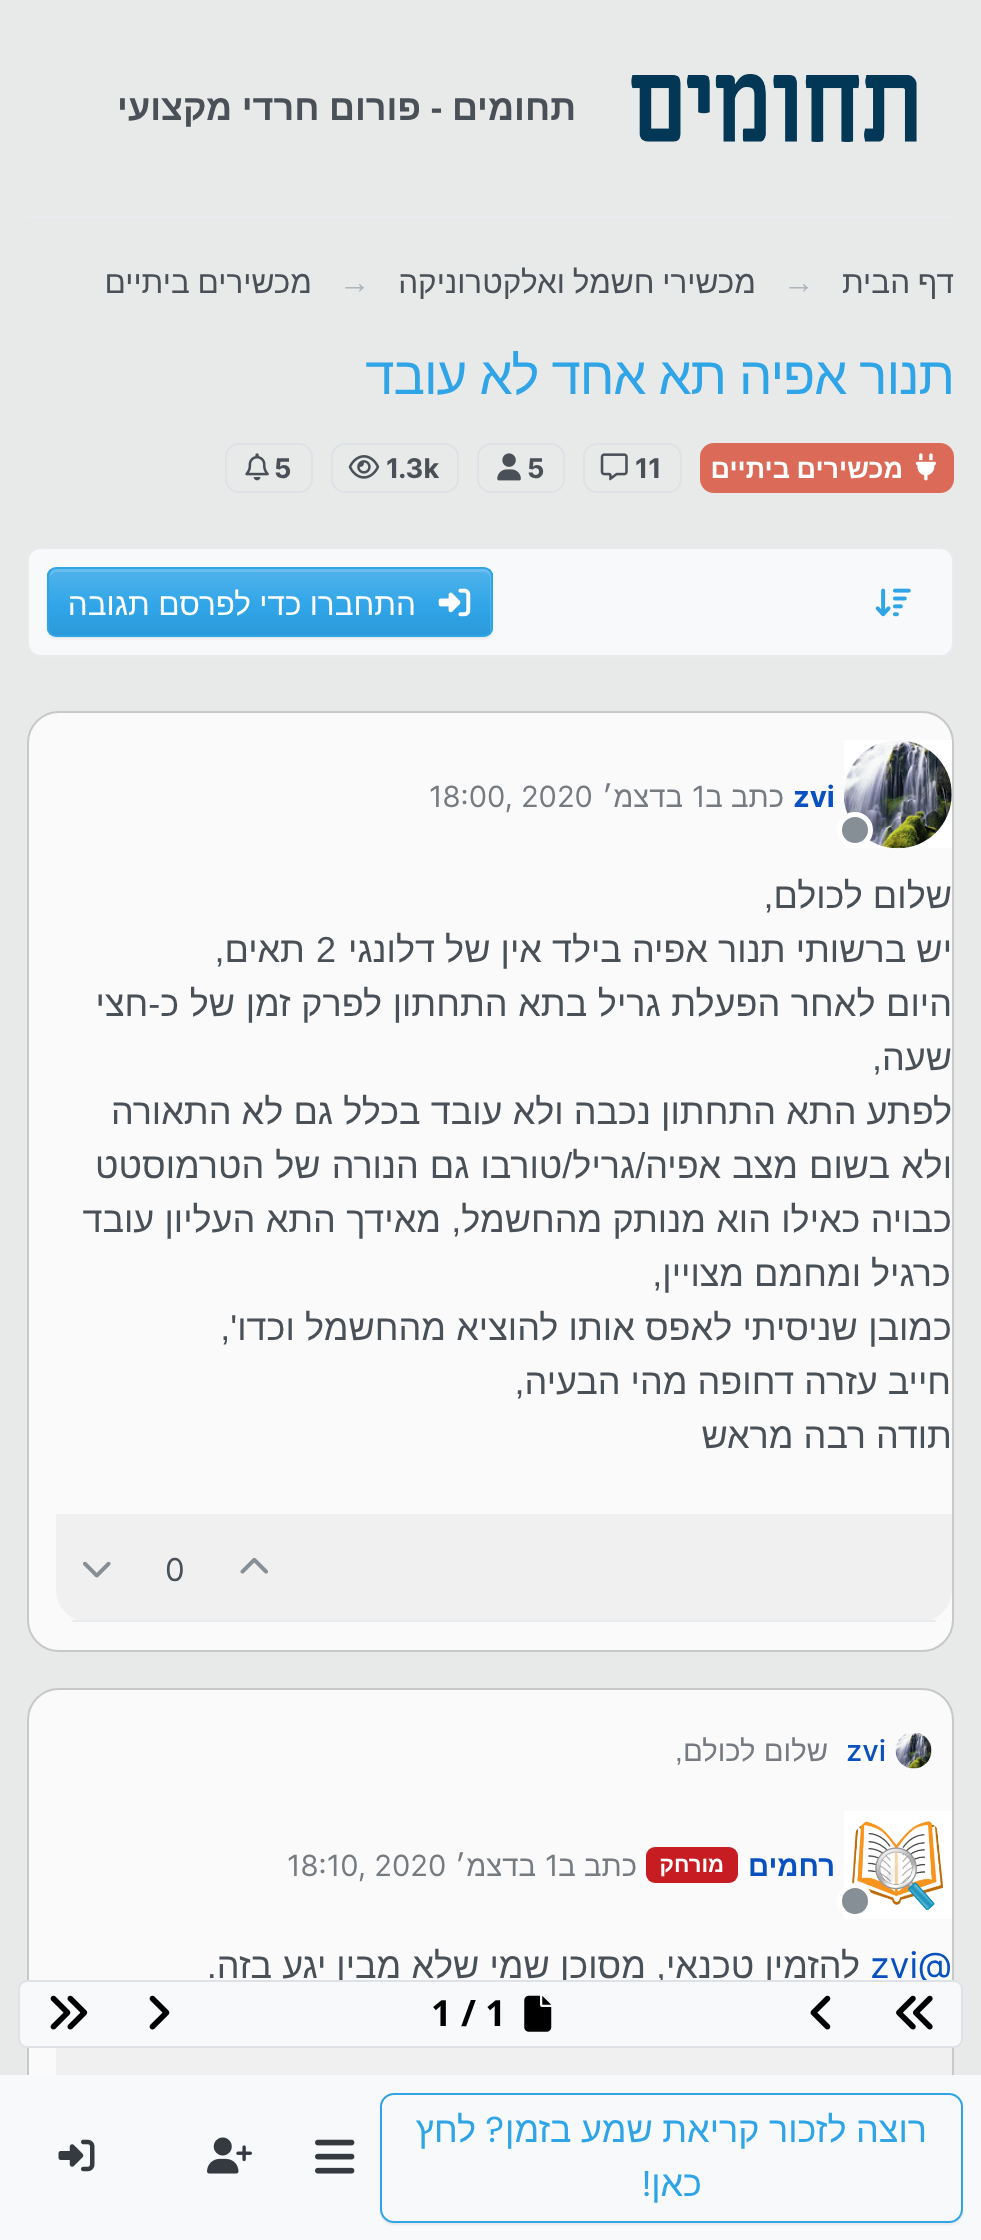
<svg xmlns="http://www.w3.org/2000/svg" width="981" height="2240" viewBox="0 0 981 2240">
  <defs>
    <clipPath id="clip1"><rect x="47" y="567" width="446" height="70" rx="9"/></clipPath>
    <linearGradient id="g1" gradientUnits="userSpaceOnUse" x1="270" y1="569" x2="270" y2="635"><stop offset="0" stop-color="rgb(80,179,235)"/><stop offset="0.6" stop-color="rgb(47,164,231)"/><stop offset="1" stop-color="rgb(44,154,217)"/></linearGradient>
  </defs>
  <rect width="100%" height="100%" fill="rgb(232,233,233)"/>
  <rect x="27" y="216" width="927" height="2" fill="rgb(233,236,239)"/>
  <image x="631" y="74" width="286" height="68" href="pic1.png"/>
  <text x="576" y="120" word-spacing="-0.5" font-family="Liberation Sans" font-size="36" font-weight="bold" direction="rtl" fill="rgb(73,80,87)">תחומים - פורום חרדי מקצועי</text>
  <text x="954" y="293" word-spacing="-1" font-family="Liberation Sans" font-size="31.5" direction="rtl" fill="rgb(73,80,87)">דף הבית</text>
  <text x="783" y="293" font-family="Liberation Sans" font-size="31.5" fill="rgb(173,181,189)">→</text>
  <text x="756" y="293" word-spacing="-1" font-family="Liberation Sans" font-size="31.5" direction="rtl" fill="rgb(73,80,87)">מכשירי חשמל ואלקטרוניקה</text>
  <text x="339" y="293" font-family="Liberation Sans" font-size="31.5" fill="rgb(173,181,189)">→</text>
  <text x="312" y="293" word-spacing="-1" font-family="Liberation Sans" font-size="31.5" direction="rtl" fill="rgb(73,80,87)">מכשירים ביתיים</text>
  <text x="954" y="394" word-spacing="-0.5" font-family="Liberation Sans" font-size="52.75" letter-spacing="-1.05" direction="rtl" fill="rgb(47,164,231)">תנור אפיה תא אחד לא עובד</text>
  <rect x="701" y="444" width="252" height="48" rx="13" fill="rgb(219,107,88)" stroke="rgb(219,107,88)" stroke-width="2"/>
  <image x="915" y="453" width="21" height="28" href="pic2.png"/>
  <text x="903" y="478" word-spacing="-1" font-family="Liberation Sans" font-size="27" font-weight="bold" direction="rtl" fill="rgb(255,255,255)">מכשירים ביתיים</text>
  <rect x="584" y="444" width="97" height="48" rx="13" fill="none" stroke="rgb(222,226,230)" stroke-width="2"/>
  <text x="635" y="478" font-family="Inter" font-size="27" font-weight="bold" fill="rgb(73,80,87)">11</text>
  <image x="600" y="453" width="28" height="28" href="pic3.png"/>
  <rect x="478" y="444" width="86" height="48" rx="13" fill="none" stroke="rgb(222,226,230)" stroke-width="2"/>
  <text x="527" y="478" font-family="Inter" font-size="27" font-weight="bold" fill="rgb(73,80,87)">5</text>
  <image x="497" y="453" width="24" height="28" href="pic4.png"/>
  <rect x="332" y="444" width="126" height="48" rx="13" fill="none" stroke="rgb(222,226,230)" stroke-width="2"/>
  <text x="386" y="478" font-family="Inter" font-size="27" font-weight="bold" fill="rgb(73,80,87)">1.3k</text>
  <image x="348" y="455" width="32" height="24" href="pic5.png"/>
  <rect x="226" y="444" width="86" height="48" rx="13" fill="none" stroke="rgb(222,226,230)" stroke-width="2"/>
  <text x="274" y="478" font-family="Inter" font-size="27" font-weight="bold" fill="rgb(73,80,87)">5</text>
  <image x="245" y="453" width="24" height="28" href="pic6.png"/>
  <rect x="28" y="548" width="925" height="108" rx="13" fill="rgb(248,249,250)" stroke="rgb(233,236,239)" stroke-width="2"/>
  <image x="875" y="588" width="36" height="29" href="pic7.png"/>
  <rect x="47" y="569" width="446" height="70" rx="9" fill="rgba(0,0,0,0.07)" filter="blur(1px)"/>
  <g clip-path="url(#clip1)">
    <rect x="47" y="569" width="446" height="66" fill="url(#g1)"/>
  </g>
  <path d="M56 572H484C487 572 490 575 490 578V632C491 631 491 629 491 628V576C491 572 488 569 484 569H57C53 569 50 572 50 576V578C50 575 53 572 56 572Z" fill="rgba(255,255,255,0.15)"/>
  <rect x="48" y="568" width="444" height="68" rx="8" fill="none" stroke="rgb(47,164,231)" stroke-width="2"/>
  <image x="438" y="588" width="33" height="29" href="pic8.png"/>
  <text x="416" y="615" word-spacing="-0.5" font-family="Liberation Sans" font-size="31.5" direction="rtl" fill="rgb(255,255,255)">התחברו כדי לפרסם תגובה</text>
  <rect x="28" y="712" width="925" height="939" rx="31" fill="rgb(250,250,250)" stroke="rgb(200,200,200)" stroke-width="2"/>
  <rect x="844" y="740" width="108" height="108" fill="rgb(255,255,255)"/>
  <image x="844" y="740" width="108" height="109" href="pic9.png"/>
  <circle cx="855" cy="830" r="15.5" fill="rgb(134,142,150)" stroke="rgb(255,255,255)" stroke-width="5"/>
  <text x="793" y="807" font-family="Inter" font-size="29.25" font-weight="bold" fill="rgb(9,81,190)">zvi</text>
  <text x="784" y="807" font-family="Liberation Sans" font-size="29.25" direction="rtl" fill="rgb(117,123,128)">כתב ב</text>
  <text x="692" y="807" font-family="Inter" font-size="29.25" fill="rgb(117,123,128)">1</text>
  <text x="683" y="807" font-family="Liberation Sans" font-size="29.25" direction="rtl" fill="rgb(117,123,128)">בדצמ׳</text>
  <text x="429" y="807" font-family="Inter" font-size="29.25" fill="rgb(117,123,128)">18:00, 2020</text>
  <g font-family="Liberation Sans" font-size="36" direction="rtl" fill="rgb(73,80,87)">
    <text>
      <tspan x="952" y="908">שלום לכולם,</tspan>
      <tspan x="952" y="962" word-spacing="0.1">יש ברשותי תנור אפיה בילד אין של דלונגי</tspan>
    </text>
  </g>
  <text x="316" y="962" font-family="Liberation Sans" font-size="36" fill="rgb(73,80,87)">2</text>
  <g font-family="Liberation Sans" font-size="36" direction="rtl" fill="rgb(73,80,87)">
    <text x="305" y="962">תאים,</text>
    <text>
      <tspan x="952" y="1016" word-spacing="0.6">היום לאחר הפעלת גריל בתא התחתון לפרק זמן של כ-חצי</tspan>
      <tspan x="952" y="1070">שעה,</tspan>
      <tspan x="952" y="1124" word-spacing="0.1">לפתע התא התחתון נכבה ולא עובד בכלל גם לא התאורה</tspan>
      <tspan x="952" y="1178" word-spacing="1">ולא בשום מצב אפיה/גריל/טורבו גם הנורה של הטרמוסטט</tspan>
      <tspan x="952" y="1232" word-spacing="0.25">כבויה כאילו הוא מנותק מהחשמל, מאידך התא העליון עובד</tspan>
    </text>
    <text x="951" y="1286">כרגיל ומחמם מצויין,</text>
    <text x="952" y="1340" word-spacing="0.25">כמובן שניסיתי לאפס אותו להוציא מהחשמל וכדו',</text>
    <text x="951" y="1394">חייב עזרה דחופה מהי הבעיה,</text>
    <text x="952" y="1448">תודה רבה מראש</text>
  </g>
  <path d="M56 1514H952V1590C952 1607.5 937.5 1622 920 1622H88C70.5 1622 56 1607.5 56 1590Z" fill="rgb(240,240,241)"/>
  <rect x="72" y="1620" width="864" height="2" fill="rgb(233,236,239)"/>
  <image x="240" y="1557" width="28" height="17" href="pic10.png"/>
  <text x="165" y="1581" font-family="Inter" font-size="31.5" fill="rgb(73,80,87)">0</text>
  <image x="83" y="1561" width="28" height="17" href="pic11.png"/>
  <rect x="28" y="1689" width="925" height="493" rx="31" fill="rgb(250,250,250)" stroke="rgb(200,200,200)" stroke-width="2"/>
  <image x="895" y="1733" width="37" height="36" href="pic12.png"/>
  <text x="846" y="1761" font-family="Inter" font-size="29.25" font-weight="500" fill="rgb(9,81,190)">zvi</text>
  <text x="828" y="1761" font-family="Liberation Sans" font-size="29.25" direction="rtl" fill="rgb(117,123,128)">שלום לכולם,</text>
  <rect x="844" y="1811" width="108" height="108" fill="rgb(255,255,255)"/>
  <image x="852" y="1821" width="91" height="90" href="pic13.png"/>
  <circle cx="855" cy="1901" r="15.5" fill="rgb(134,142,150)" stroke="rgb(255,255,255)" stroke-width="5"/>
  <text x="835" y="1876" font-family="Liberation Sans" font-size="29.25" font-weight="bold" direction="rtl" fill="rgb(9,81,190)">רחמים</text>
  <rect x="646" y="1847" width="92" height="36" rx="9" fill="rgb(199,28,34)"/>
  <text x="724" y="1872" font-family="Liberation Sans" font-size="22" font-weight="bold" direction="rtl" fill="rgb(255,255,255)">מורחק</text>
  <text x="637" y="1876" font-family="Liberation Sans" font-size="29.25" direction="rtl" fill="rgb(117,123,128)">כתב ב</text>
  <text x="545" y="1876" font-family="Inter" font-size="29.25" fill="rgb(117,123,128)">1</text>
  <text x="536" y="1876" font-family="Liberation Sans" font-size="29.25" direction="rtl" fill="rgb(117,123,128)">בדצמ׳</text>
  <text x="287" y="1876" font-family="Inter" font-size="29.25" fill="rgb(117,123,128)">18:10, 2020</text>
  <g font-family="Inter" font-size="36" fill="rgb(9,81,190)">
    <text x="918" y="1978">@</text>
    <text x="870" y="1978">zvi</text>
  </g>
  <text x="860" y="1978" word-spacing="0.1" font-family="Liberation Sans" font-size="36" direction="rtl" fill="rgb(73,80,87)">להזמין טכנאי, מסוכן שמי שלא מבין יגע בזה.</text>
  <rect x="56" y="2048" width="896" height="27" fill="rgb(240,240,241)"/>
  <rect x="19" y="1981" width="943" height="66" rx="8" fill="rgb(248,249,250)" stroke="rgb(222,226,230)" stroke-width="2"/>
  <image x="896" y="1995" width="37" height="35" href="pic14.png"/>
  <image x="810" y="1995" width="21" height="35" href="pic15.png"/>
  <image x="524" y="1995" width="28" height="37" href="pic16.png"/>
  <text x="431" y="2026" font-family="Noto Sans" font-size="36" font-weight="bold" fill="rgb(0,0,0)">1 / 1</text>
  <image x="149" y="1995" width="21" height="35" href="pic17.png"/>
  <image x="50" y="1995" width="38" height="35" href="pic18.png"/>
  <rect x="0" y="2075" width="981" height="165" fill="rgb(248,249,250)"/>
  <rect x="380" y="2095" width="583" height="130" rx="14" fill="rgba(0,0,0,0.07)" filter="blur(1px)"/>
  <rect x="381" y="2094" width="581" height="128" rx="13" fill="rgb(248,249,250)" stroke="rgb(47,164,231)" stroke-width="2"/>
  <text x="927" y="2142" word-spacing="-0.5" font-family="Liberation Sans" font-size="36" direction="rtl" fill="rgb(47,164,231)">רוצה לזכור קריאת שמע בזמן</text>
  <text x="504" y="2142" font-family="Poppins" font-size="36" direction="rtl" fill="rgb(47,164,231)">?</text>
  <g font-family="Liberation Sans" font-size="36" direction="rtl" fill="rgb(47,164,231)">
    <text x="476" y="2142">לחץ</text>
    <text x="702" y="2196">כאן</text>
  </g>
  <text x="652" y="2196" font-family="Poppins" font-size="36" direction="rtl" fill="rgb(47,164,231)">!</text>
  <image x="315" y="2139" width="40" height="35" href="pic19.png"/>
  <image x="207" y="2137" width="45" height="37" href="pic20.png"/>
  <image x="58" y="2139" width="37" height="33" href="pic21.png"/>
</svg>
